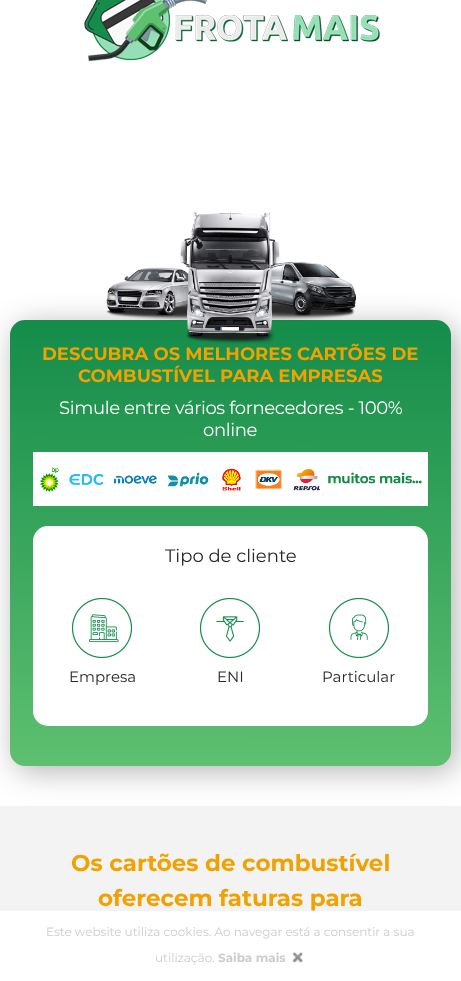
<svg xmlns="http://www.w3.org/2000/svg" width="461" height="981" viewBox="0 0 461 981">
  <defs>
    <linearGradient id="g1" gradientUnits="userSpaceOnUse" x1="230" y1="320" x2="231" y2="766"><stop offset="0" stop-color="rgb(20,140,74)"/><stop offset="1" stop-color="rgb(94,192,112)"/></linearGradient>
  </defs>
  <rect width="100%" height="100%" fill="rgb(255,255,255)"/>
  <image x="84" y="0" width="296" height="61" href="pic1.png"/>
  <rect x="0" y="806" width="461" height="105" fill="rgb(243,243,243)"/>
  <rect x="15" y="325" width="441" height="446" rx="15" fill="rgba(0,0,0,0.3)" filter="blur(15px)"/>
  <rect x="10" y="320" width="441" height="446" rx="15" fill="url(#g1)"/>
  <image x="106" y="210" width="250" height="134" href="pic2.png"/>
  <g font-family="Montserrat" font-size="18" font-weight="bold" fill="rgb(240,162,2)">
    <text x="42" y="360">DESCUBRA OS MELHORES CARTÕES DE</text>
    <text x="78" y="382">COMBUSTÍVEL PARA EMPRESAS</text>
  </g>
  <g font-family="Montserrat" font-size="18" letter-spacing="-0.35" fill="rgb(255,255,255)">
    <text x="59" y="414">Simule entre vários fornecedores - 100%</text>
    <text x="203" y="436">online</text>
  </g>
  <image x="33" y="452" width="395" height="54" href="pic3.png"/>
  <rect x="33" y="526" width="395" height="200" rx="15" fill="rgb(255,255,255)"/>
  <text x="165" y="562" font-family="Montserrat" font-size="18" fill="rgb(38,38,38)">Tipo de cliente</text>
  <image x="72" y="598" width="60" height="60" href="pic4.png"/>
  <text x="69" y="682" font-family="Montserrat" font-size="15" fill="rgb(38,38,38)">Empresa</text>
  <image x="200" y="598" width="60" height="60" href="pic5.png"/>
  <text x="217" y="682" font-family="Montserrat" font-size="15" fill="rgb(38,38,38)">ENI</text>
  <image x="329" y="598" width="60" height="60" href="pic6.png"/>
  <text x="322" y="682" font-family="Montserrat" font-size="15" fill="rgb(38,38,38)">Particular</text>
  <g font-family="Montserrat" font-size="23" font-weight="bold" fill="rgb(240,162,2)">
    <text x="71" y="871">Os cartões de combustível</text>
    <text x="98" y="906">oferecem faturas para</text>
  </g>
  <g font-family="Montserrat" font-size="12" fill="rgb(204,204,204)">
    <text x="46" y="936">Este website utiliza cookies. Ao navegar está a consentir a sua</text>
    <text x="155" y="962">utilização.</text>
  </g>
  <text x="218" y="962" font-family="Montserrat" font-size="12" font-weight="bold" fill="rgb(204,204,204)">Saiba mais</text>
  <image x="292" y="952" width="11" height="11" href="pic7.png"/>
</svg>
